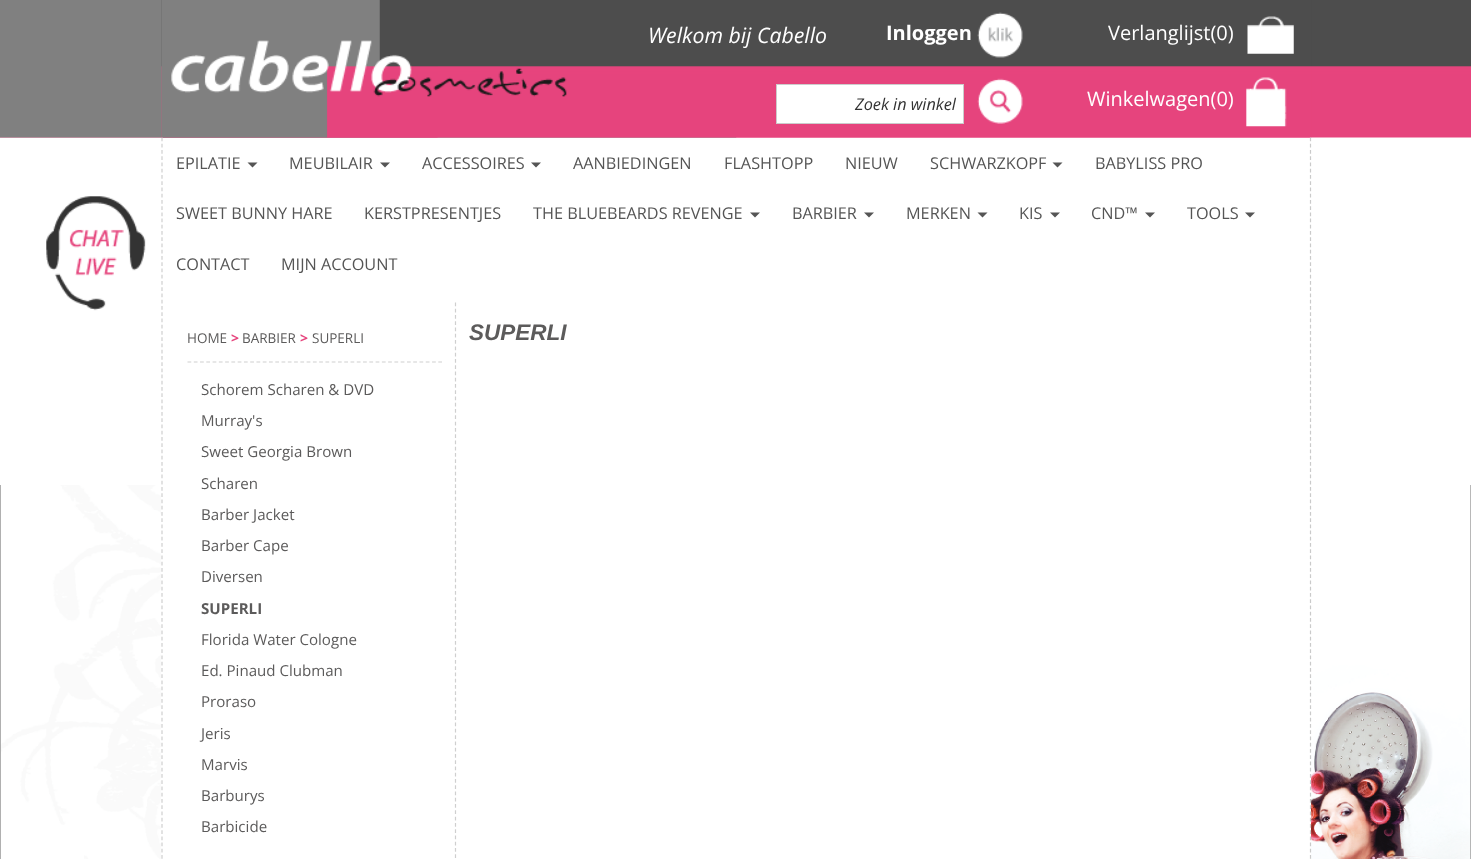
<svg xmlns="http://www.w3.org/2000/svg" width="1471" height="859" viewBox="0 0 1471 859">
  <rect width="100%" height="100%" fill="rgb(255,255,255)"/>
  <image x="0" y="0" width="1471" height="138" href="pic1.png"/>
  <image x="161" y="0" width="1151" height="138" href="pic2.png"/>
  <image x="171" y="40" width="396" height="57" href="pic3.png"/>
  <text x="648" y="43" font-family="Open Sans" font-size="21.25" font-style="italic" fill="rgb(255,255,255)">Welkom bij Cabello</text>
  <text x="886" y="40" font-family="Open Sans" font-size="20" font-weight="bold" fill="rgb(255,255,255)">Inloggen</text>
  <image x="977" y="12" width="46" height="46" href="pic4.png"/>
  <text x="1108" y="40" font-family="Open Sans" font-size="20" fill="rgb(255,255,255)">Verlanglijst(0)</text>
  <image x="1247" y="16" width="47" height="38" href="pic5.png"/>
  <rect x="776.5" y="84.5" width="187" height="39" fill="rgb(255,255,255)" stroke="rgb(204,204,204)"/>
  <text x="855" y="110" font-family="Open Sans" font-size="16.25" font-style="italic" fill="rgb(51,51,51)">Zoek in winkel</text>
  <image x="977" y="78" width="46" height="46" href="pic6.png"/>
  <text x="1087" y="106" font-family="Open Sans" font-size="20" fill="rgb(255,255,255)">Winkelwagen(0)</text>
  <image x="1246" y="77" width="41" height="50" href="pic7.png"/>
  <image x="0" y="485" width="1471" height="374" href="pic8.png"/>
  <rect x="161" y="485" width="1150" height="374" fill="rgb(255,255,255)"/>
  <path d="M1310.5 137.5V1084" fill="none" stroke="rgb(202,202,202)" stroke-width="1.2" stroke-dasharray="3.75 2.49"/>
  <path d="M162 137.5V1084" fill="none" stroke="rgb(207,207,207)" stroke-width="1.2" stroke-dasharray="3.75 2.49"/>
  <image x="46" y="196" width="100" height="115" href="pic9.png"/>
  <text x="176" y="169" font-family="Open Sans" font-size="16.25" fill="rgb(85,85,85)">EPILATIE</text>
  <path d="M247.5 162.5H257.5L252.5 167.5Z" fill="rgb(85,85,85)"/>
  <text x="289" y="169" font-family="Open Sans" font-size="16.25" fill="rgb(85,85,85)">MEUBILAIR</text>
  <path d="M380 162.5H390L385 167.5Z" fill="rgb(85,85,85)"/>
  <text x="422" y="169" font-family="Open Sans" font-size="16.25" fill="rgb(85,85,85)">ACCESSOIRES</text>
  <path d="M531 162.5H541L536 167.5Z" fill="rgb(85,85,85)"/>
  <g font-family="Open Sans" font-size="16.25" fill="rgb(85,85,85)">
    <text x="573" y="169">AANBIEDINGEN</text>
    <text x="724" y="169">FLASHTOPP</text>
    <text x="845" y="169">NIEUW</text>
    <text x="930" y="169">SCHWARZKOPF</text>
  </g>
  <path d="M1052.5 162.5H1062.5L1057.5 167.5Z" fill="rgb(85,85,85)"/>
  <g font-family="Open Sans" font-size="16.25" fill="rgb(85,85,85)">
    <text x="1095" y="169">BABYLISS PRO</text>
    <text x="176" y="219">SWEET BUNNY HARE</text>
    <text x="364" y="219">KERSTPRESENTJES</text>
    <text x="533" y="219">THE BLUEBEARDS REVENGE</text>
  </g>
  <path d="M750 212.5H760L755 217.5Z" fill="rgb(85,85,85)"/>
  <text x="792" y="219" font-family="Open Sans" font-size="16.25" fill="rgb(85,85,85)">BARBIER</text>
  <path d="M864 212.5H874L869 217.5Z" fill="rgb(85,85,85)"/>
  <text x="906" y="219" font-family="Open Sans" font-size="16.25" fill="rgb(85,85,85)">MERKEN</text>
  <path d="M977.5 212.5H987.5L982.5 217.5Z" fill="rgb(85,85,85)"/>
  <text x="1019" y="219" font-family="Open Sans" font-size="16.25" fill="rgb(85,85,85)">KIS</text>
  <path d="M1050 212.5H1060L1055 217.5Z" fill="rgb(85,85,85)"/>
  <text x="1091" y="219" font-family="Open Sans" font-size="16.25" fill="rgb(85,85,85)">CND™</text>
  <path d="M1145 212.5H1155L1150 217.5Z" fill="rgb(85,85,85)"/>
  <text x="1187" y="219" font-family="Open Sans" font-size="16.25" fill="rgb(85,85,85)">TOOLS</text>
  <path d="M1245 212.5H1255L1250 217.5Z" fill="rgb(85,85,85)"/>
  <g font-family="Open Sans" font-size="16.25" fill="rgb(85,85,85)">
    <text x="176" y="270">CONTACT</text>
    <text x="281" y="270">MIJN ACCOUNT</text>
  </g>
  <text x="187" y="343" font-family="Open Sans" font-size="13.5" fill="rgb(92,91,91)">HOME</text>
  <text x="231" y="343" font-family="Open Sans" font-size="14" font-weight="bold" fill="rgb(230,68,125)">&gt;</text>
  <text x="242" y="343" font-family="Open Sans" font-size="13.5" fill="rgb(92,91,91)">BARBIER</text>
  <text x="300" y="343" font-family="Open Sans" font-size="14" font-weight="bold" fill="rgb(230,68,125)">&gt;</text>
  <text x="312" y="343" font-family="Open Sans" font-size="13.5" fill="rgb(92,91,91)">SUPERLI</text>
  <path d="M187.5 362H442.5" fill="none" stroke="rgb(207,207,207)" stroke-width="1.2" stroke-dasharray="3.75 2.52"/>
  <g font-family="Open Sans" font-size="15.1" fill="rgb(92,91,91)">
    <text x="201" y="395">Schorem Scharen &amp; DVD</text>
    <text x="201" y="426">Murray's</text>
    <text x="201" y="457">Sweet Georgia Brown</text>
    <text x="201" y="489">Scharen</text>
    <text x="201" y="520">Barber Jacket</text>
    <text x="201" y="551">Barber Cape</text>
    <text x="201" y="582">Diversen</text>
  </g>
  <text x="201" y="614" font-family="Open Sans" font-size="15.1" font-weight="bold" fill="rgb(92,91,91)">SUPERLI</text>
  <g font-family="Open Sans" font-size="15.1" fill="rgb(92,91,91)">
    <text x="201" y="645">Florida Water Cologne</text>
    <text x="201" y="676">Ed. Pinaud Clubman</text>
    <text x="201" y="707">Proraso</text>
    <text x="201" y="739">Jeris</text>
    <text x="201" y="770">Marvis</text>
    <text x="201" y="801">Barburys</text>
    <text x="201" y="832">Barbicide</text>
  </g>
  <path d="M455.5 302.5V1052.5" fill="none" stroke="rgb(207,207,207)" stroke-width="1.2" stroke-dasharray="3.75 2.52"/>
  <text x="469" y="340" font-family="Liberation Sans" font-size="22.5" font-weight="bold" font-style="italic" fill="rgb(92,91,91)">SUPERLI</text>
</svg>
